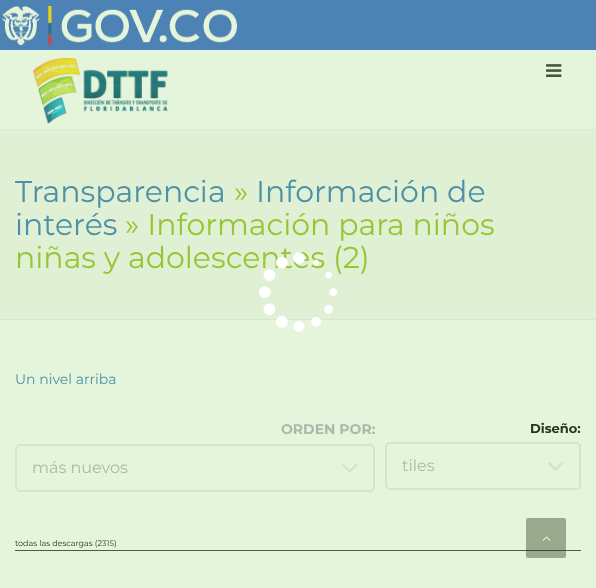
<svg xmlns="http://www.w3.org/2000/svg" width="596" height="588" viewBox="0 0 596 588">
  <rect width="100%" height="100%" fill="rgb(229,245,219)"/>
  <rect x="0" y="0" width="596" height="50" fill="rgb(76,130,180)"/>
  <image x="2" y="6" width="235" height="39" href="pic1.png"/>
  <rect x="0" y="129" width="596" height="1" fill="rgb(220,235,209)"/>
  <image x="33" y="58" width="135" height="66" href="pic2.png"/>
  <image x="546" y="64" width="16" height="13" href="pic3.png"/>
  <rect x="0" y="130" width="596" height="189" fill="rgb(224,240,213)"/>
  <text x="15" y="202" font-family="Montserrat" font-size="30" fill="rgb(76,145,165)">Transparencia</text>
  <text x="234" y="202" font-family="Montserrat" font-size="30" fill="rgb(149,198,51)">»</text>
  <g font-family="Montserrat" font-size="30" fill="rgb(76,145,165)">
    <text x="256" y="202">Información de</text>
    <text x="15" y="235">interés</text>
  </g>
  <g font-family="Montserrat" font-size="30" fill="rgb(149,198,51)">
    <text x="125" y="235">» Información para niños</text>
    <text x="15" y="268">niñas y adolescentes (2)</text>
  </g>
  <rect x="0" y="319" width="596" height="1" fill="rgb(214,230,204)"/>
  <text x="15" y="384" font-family="Montserrat" font-size="14" fill="rgb(76,145,165)">Un nivel arriba</text>
  <text x="281" y="434" font-family="Montserrat" font-size="14" font-weight="bold" fill="rgb(166,187,169)">ORDEN POR:</text>
  <image x="342" y="464" width="15" height="9" href="pic4.png"/>
  <rect x="16" y="445" width="358" height="46" rx="4" fill="none" stroke="rgb(211,228,206)" stroke-width="2"/>
  <text x="32" y="473" font-family="Montserrat" font-size="16" fill="rgb(166,187,169)">más nuevos</text>
  <text x="530" y="433" font-family="Montserrat" font-size="13" font-weight="bold" fill="rgb(38,54,27)">Diseño:</text>
  <image x="548" y="462" width="15" height="9" href="pic4.png"/>
  <rect x="386" y="443" width="194" height="46" rx="4" fill="none" stroke="rgb(211,228,206)" stroke-width="2"/>
  <text x="402" y="471" font-family="Montserrat" font-size="16" fill="rgb(166,187,169)">tiles</text>
  <rect x="15" y="550" width="566" height="1" fill="rgb(76,92,66)"/>
  <text x="15" y="546" font-family="Montserrat" font-size="8" fill="rgb(38,54,27)">todas las descargas (2315)</text>
  <image x="259" y="252" width="78" height="80" href="pic5.png"/>
  <rect x="526" y="518" width="40" height="40" rx="2" fill="rgba(38,54,27,0.4)"/>
  <image x="542" y="536" width="9" height="5" href="pic6.png"/>
</svg>
